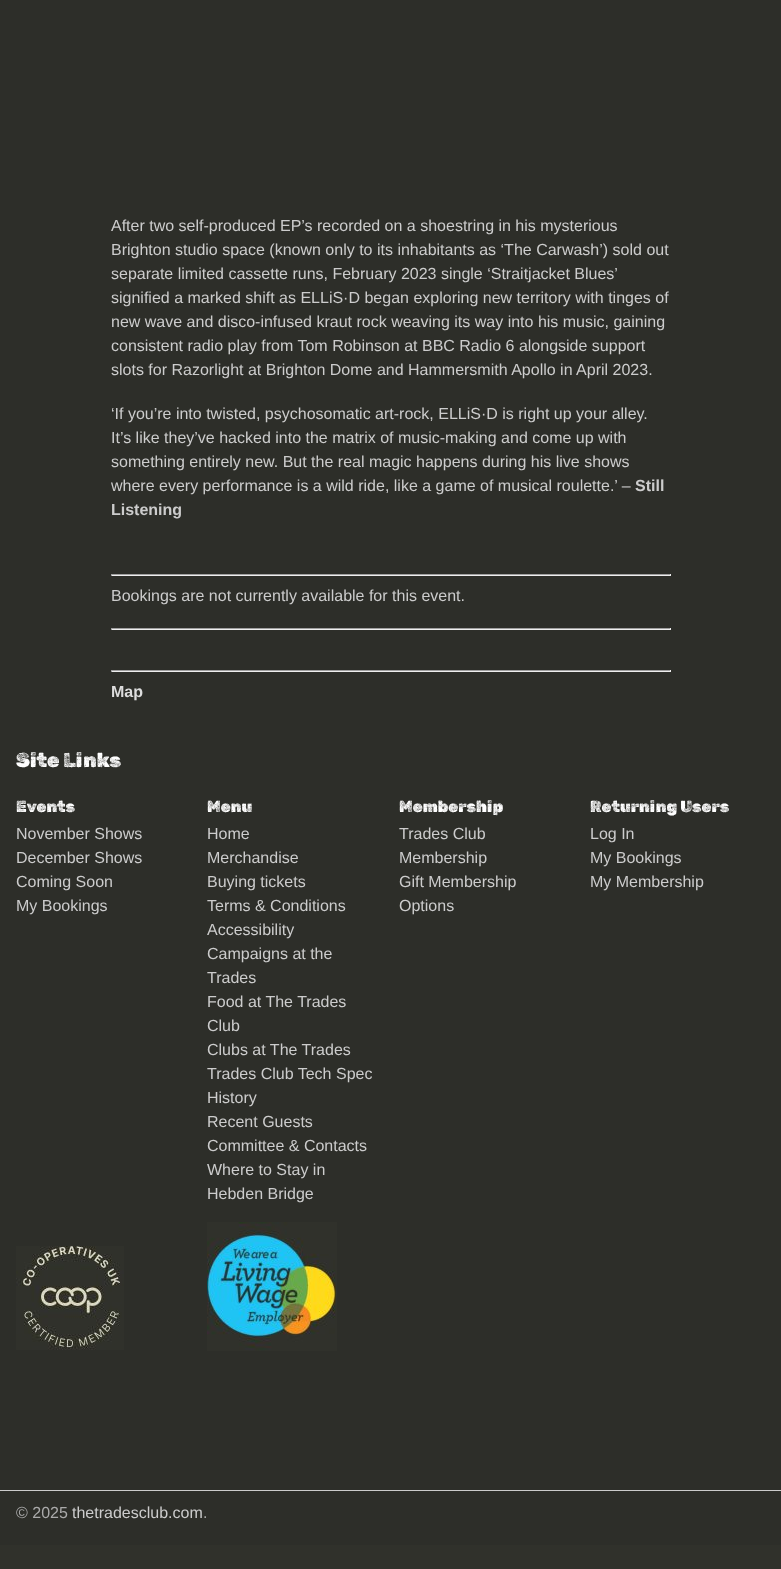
<svg xmlns="http://www.w3.org/2000/svg" width="781" height="1569" viewBox="0 0 781 1569">
  <rect width="100%" height="100%" fill="rgb(48,49,43)"/>
  <rect x="0" y="0" width="781" height="1545" fill="rgb(45,46,41)"/>
  <g font-family="Liberation Sans" font-size="16" fill="rgb(204,204,204)">
    <text>
      <tspan x="111" y="231">After two self-produced EP’s recorded on a shoestring in his mysterious</tspan>
      <tspan x="111" y="255">Brighton studio space (known only to its inhabitants as ‘The Carwash’) sold out</tspan>
      <tspan x="111" y="279">separate limited cassette runs, February 2023 single ‘Straitjacket Blues’</tspan>
      <tspan x="111" y="303">signified a marked shift as ELLiS·D began exploring new territory with tinges of</tspan>
      <tspan x="111" y="327">new wave and disco-infused kraut rock weaving its way into his music, gaining</tspan>
      <tspan x="111" y="351">consistent radio play from Tom Robinson at BBC Radio 6 alongside support</tspan>
      <tspan x="111" y="375">slots for Razorlight at Brighton Dome and Hammersmith Apollo in April 2023.</tspan>
    </text>
    <text>
      <tspan x="111" y="419">‘If you’re into twisted, psychosomatic art-rock, ELLiS·D is right up your alley.</tspan>
      <tspan x="111" y="443">It’s like they’ve hacked into the matrix of music-making and come up with</tspan>
      <tspan x="111" y="467">something entirely new. But the real magic happens during his live shows</tspan>
      <tspan x="111" y="491">where every performance is a wild ride, like a game of musical roulette.’ –</tspan>
    </text>
  </g>
  <g font-family="Liberation Sans" font-size="16" font-weight="bold" fill="rgb(204,204,204)">
    <text x="635" y="491">Still</text>
    <text x="111" y="515">Listening</text>
  </g>
  <rect x="111" y="574" width="560" height="1" fill="rgb(159,159,159)"/>
  <rect x="670" y="574" width="1" height="2" fill="rgb(238,238,238)"/>
  <rect x="111" y="575" width="560" height="1" fill="rgb(238,238,238)"/>
  <rect x="111" y="574" width="1" height="2" fill="rgb(159,159,159)"/>
  <text x="111" y="601" font-family="Liberation Sans" font-size="16" fill="rgb(204,204,204)">Bookings are not currently available for this event.</text>
  <rect x="111" y="628" width="560" height="1" fill="rgb(159,159,159)"/>
  <rect x="670" y="628" width="1" height="2" fill="rgb(238,238,238)"/>
  <rect x="111" y="629" width="560" height="1" fill="rgb(238,238,238)"/>
  <rect x="111" y="628" width="1" height="2" fill="rgb(159,159,159)"/>
  <rect x="111" y="670" width="560" height="1" fill="rgb(159,159,159)"/>
  <rect x="670" y="670" width="1" height="2" fill="rgb(238,238,238)"/>
  <rect x="111" y="671" width="560" height="1" fill="rgb(238,238,238)"/>
  <rect x="111" y="670" width="1" height="2" fill="rgb(159,159,159)"/>
  <text x="111" y="697" font-family="Liberation Sans" font-size="16" font-weight="bold" fill="rgb(221,221,221)">Map</text>
  <text x="16" y="767" font-family="Rubik Dirt" font-size="20" fill="rgb(255,255,255)">Site Links</text>
  <text x="16" y="812" font-family="Rubik Dirt" font-size="16" fill="rgb(255,255,255)">Events</text>
  <g font-family="Liberation Sans" font-size="16" fill="rgb(204,204,204)">
    <text>
      <tspan x="16" y="839">November Shows</tspan>
      <tspan x="16" y="863">December Shows</tspan>
      <tspan x="16" y="887">Coming Soon</tspan>
      <tspan x="16" y="911">My Bookings</tspan>
    </text>
  </g>
  <text x="207" y="812" font-family="Rubik Dirt" font-size="16" fill="rgb(255,255,255)">Menu</text>
  <g font-family="Liberation Sans" font-size="16" fill="rgb(204,204,204)">
    <text>
      <tspan x="207" y="839">Home</tspan>
      <tspan x="207" y="863">Merchandise</tspan>
      <tspan x="207" y="887">Buying tickets</tspan>
      <tspan x="207" y="911">Terms &amp; Conditions</tspan>
      <tspan x="207" y="935">Accessibility</tspan>
      <tspan x="207" y="959">Campaigns at the</tspan>
      <tspan x="207" y="983">Trades</tspan>
      <tspan x="207" y="1007">Food at The Trades</tspan>
      <tspan x="207" y="1031">Club</tspan>
      <tspan x="207" y="1055">Clubs at The Trades</tspan>
      <tspan x="207" y="1079">Trades Club Tech Spec</tspan>
      <tspan x="207" y="1103">History</tspan>
      <tspan x="207" y="1127">Recent Guests</tspan>
      <tspan x="207" y="1151">Committee &amp; Contacts</tspan>
      <tspan x="207" y="1175">Where to Stay in</tspan>
      <tspan x="207" y="1199">Hebden Bridge</tspan>
    </text>
  </g>
  <text x="399" y="812" font-family="Rubik Dirt" font-size="16" fill="rgb(255,255,255)">Membership</text>
  <g font-family="Liberation Sans" font-size="16" fill="rgb(204,204,204)">
    <text>
      <tspan x="399" y="839">Trades Club</tspan>
      <tspan x="399" y="863">Membership</tspan>
      <tspan x="399" y="887">Gift Membership</tspan>
      <tspan x="399" y="911">Options</tspan>
    </text>
  </g>
  <text x="590" y="812" font-family="Rubik Dirt" font-size="16" fill="rgb(255,255,255)">Returning Users</text>
  <g font-family="Liberation Sans" font-size="16" fill="rgb(204,204,204)">
    <text>
      <tspan x="590" y="839">Log In</tspan>
      <tspan x="590" y="863">My Bookings</tspan>
      <tspan x="590" y="887">My Membership</tspan>
    </text>
  </g>
  <image x="16" y="1246" width="108" height="104" href="pic1.png"/>
  <image x="207" y="1222" width="130" height="129" href="pic2.png"/>
  <rect x="0" y="1490" width="781" height="1" fill="rgb(204,204,204)"/>
  <text x="16" y="1518" font-family="Liberation Sans" font-size="16" fill="rgb(170,170,170)">© 2025</text>
  <text x="72" y="1518" font-family="Liberation Sans" font-size="16" fill="rgb(204,204,204)">thetradesclub.com</text>
  <text x="203" y="1518" font-family="Liberation Sans" font-size="16" fill="rgb(170,170,170)">.</text>
</svg>
